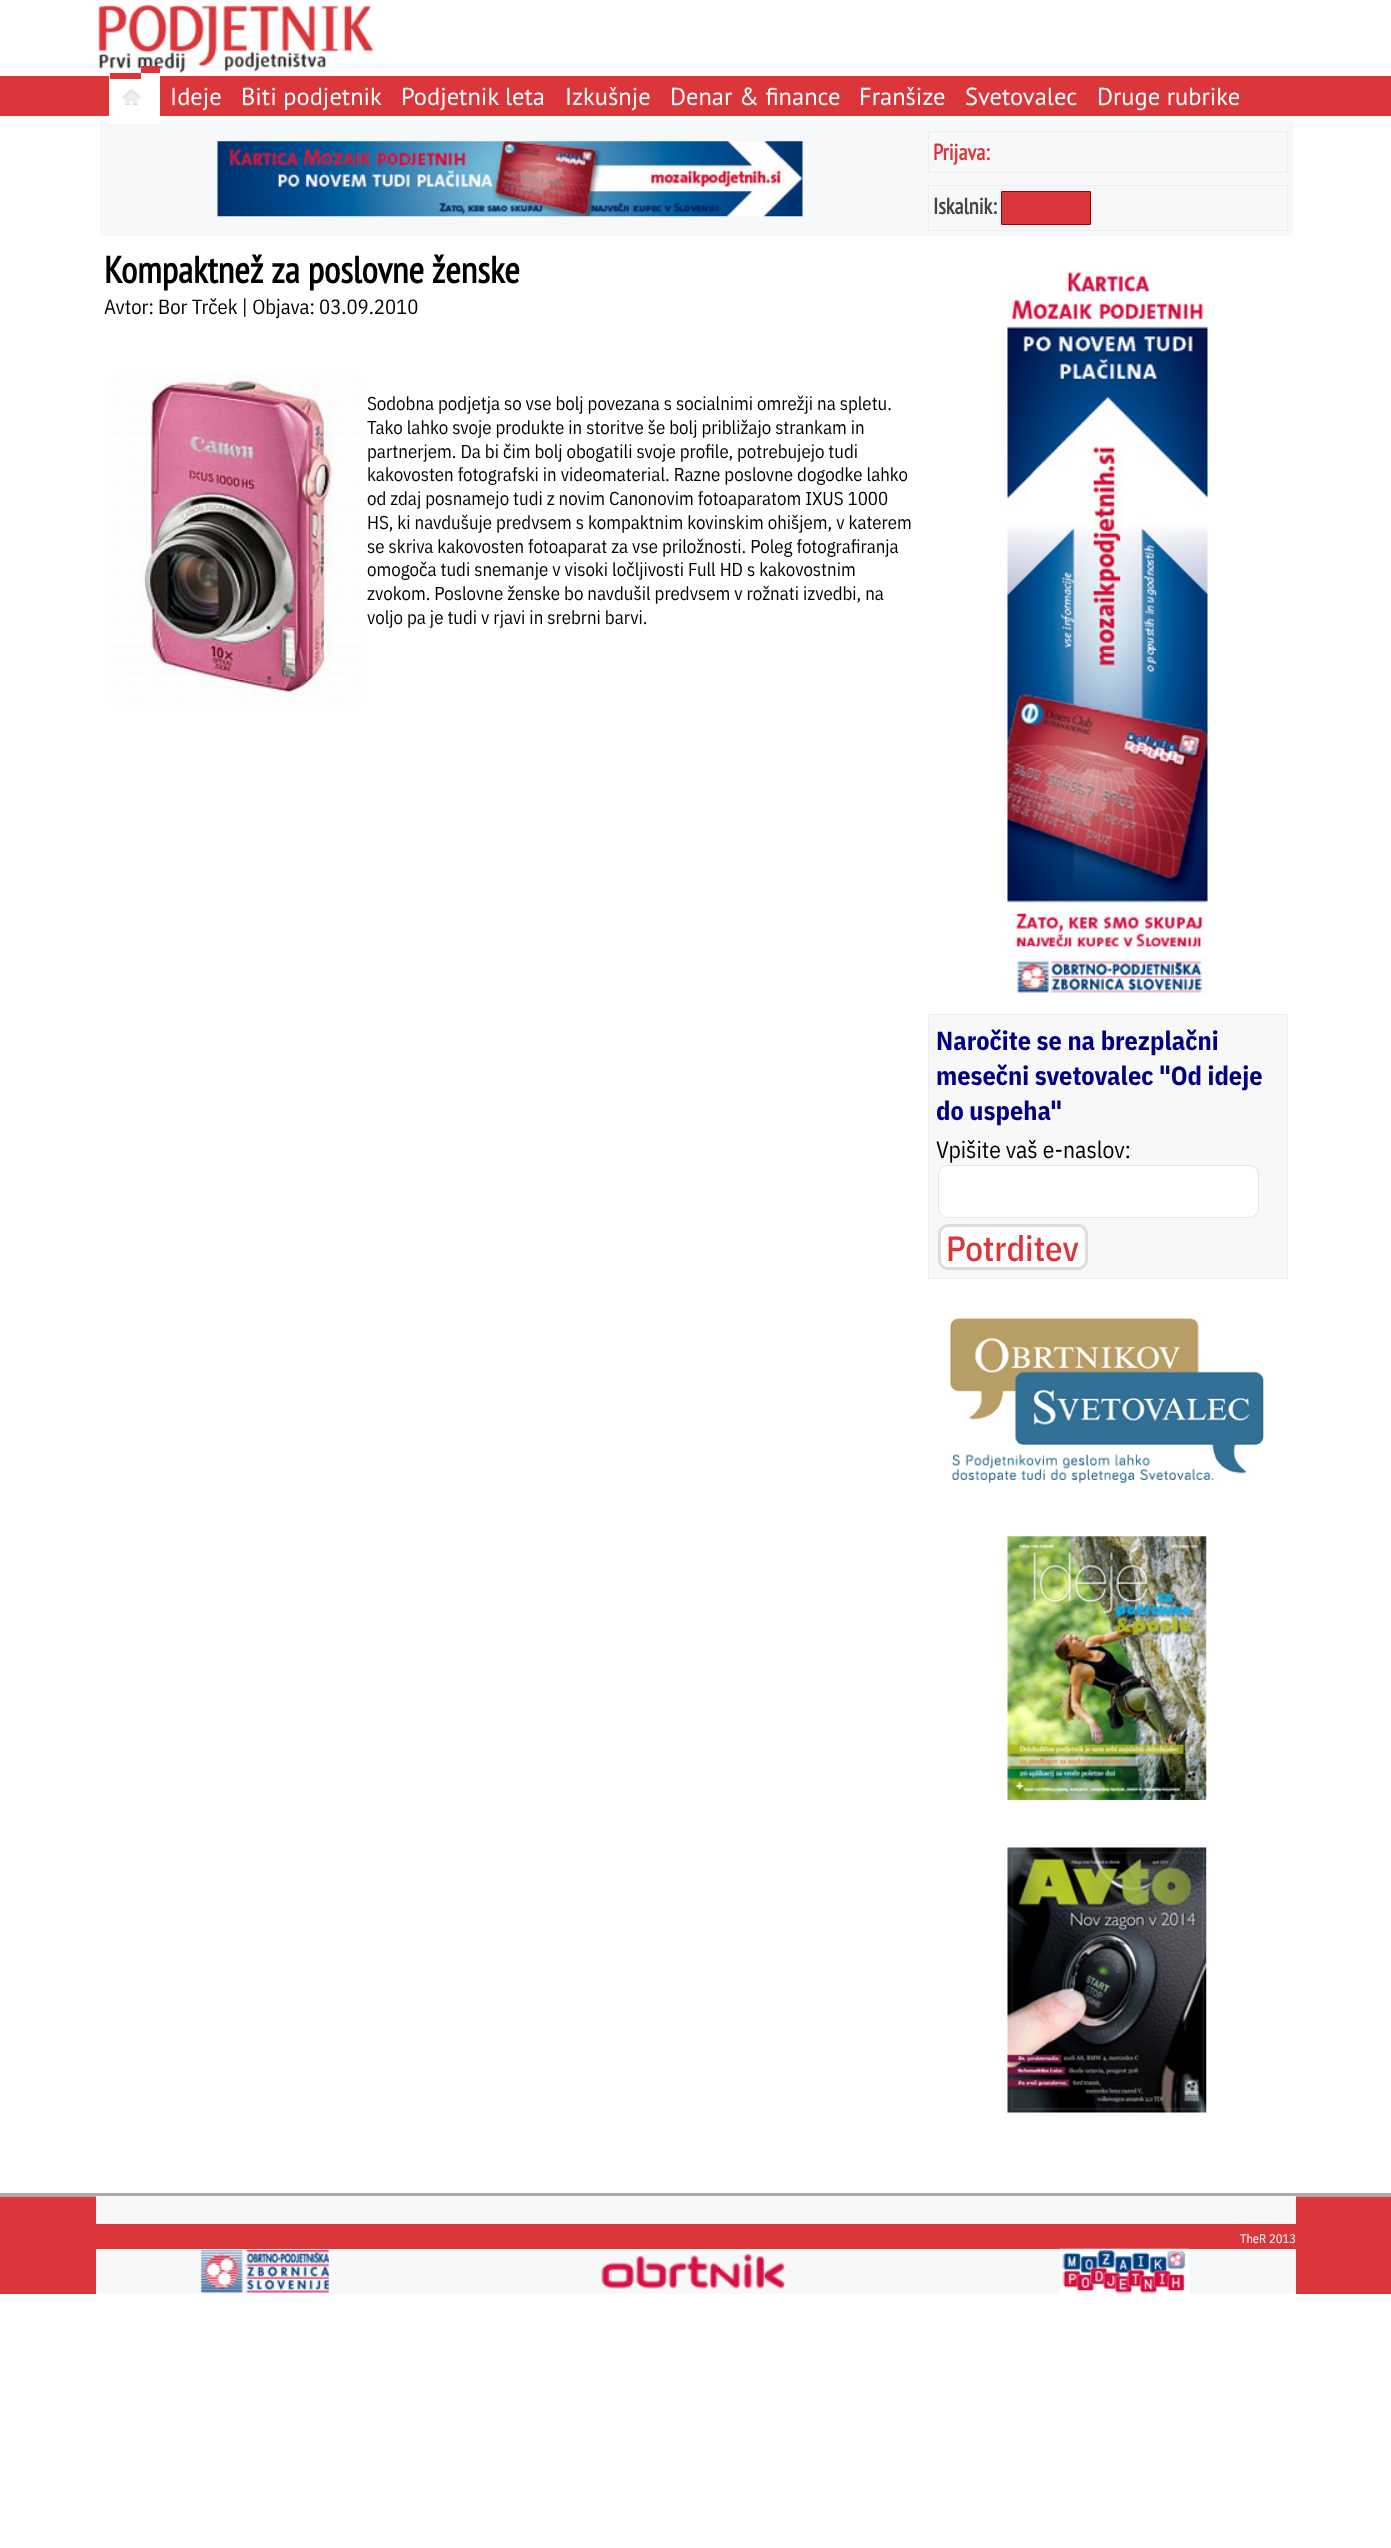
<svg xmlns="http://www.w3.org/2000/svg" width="1391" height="2548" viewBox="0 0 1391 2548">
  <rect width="100%" height="100%" fill="rgb(255,255,255)"/>
  <image x="98" y="4" width="276" height="69" href="pic1.png"/>
  <rect x="0" y="76" width="1391" height="40" fill="rgb(219,54,58)"/>
  <rect x="141" y="66" width="19" height="7" fill="rgb(219,54,58)"/>
  <rect x="100" y="120" width="1193" height="116" fill="rgb(247,248,250)"/>
  <path d="M110 73H141V124H109V74C109 73.5 109.5 73 110 73Z" fill="rgb(255,255,255)"/>
  <rect x="110" y="73" width="31" height="6" fill="rgb(219,54,58)"/>
  <rect x="141" y="76" width="19" height="48" fill="rgb(255,255,255)"/>
  <g font-family="PT Sans" font-size="24.5" fill="rgb(255,255,255)">
    <text x="170" y="105">Ideje</text>
    <text x="241" y="105">Biti podjetnik</text>
    <text x="401" y="105">Podjetnik leta</text>
    <text x="565" y="105">Izkušnje</text>
    <text x="670" y="105">Denar &amp; finance</text>
    <text x="859" y="105">Franšize</text>
    <text x="965" y="105">Svetovalec</text>
    <text x="1097" y="105">Druge rubrike</text>
  </g>
  <image x="122" y="88" width="19" height="18" href="pic2.png"/>
  <image x="217" y="141" width="586" height="76" href="pic3.png"/>
  <rect x="928.5" y="131.5" width="359" height="41" fill="none" stroke="rgb(238,238,238)"/>
  <text x="933" y="160" font-family="PT Sans Narrow" font-size="22.5" font-weight="bold" fill="rgb(219,54,58)">Prijava:</text>
  <rect x="928.5" y="185.5" width="359" height="45" fill="none" stroke="rgb(238,238,238)"/>
  <text x="933" y="214" font-family="PT Sans Narrow" font-size="22.5" font-weight="bold" fill="rgb(68,68,68)">Iskalnik:</text>
  <rect x="1001.5" y="191.5" width="89" height="33" rx="0.5" fill="rgb(219,54,58)" stroke="rgb(153,0,0)"/>
  <text x="104" y="283" font-family="PT Sans Narrow" font-size="37.5" font-weight="bold" fill="rgb(0,0,0)">Kompaktnež za poslovne ženske</text>
  <text x="104" y="314" font-family="IBM Plex Sans Condensed" font-size="20.6" fill="rgb(0,0,0)">Avtor: Bor Trček | Objava: 03.09.2010</text>
  <image x="111" y="374" width="250" height="331" href="pic4.png"/>
  <g font-family="IBM Plex Sans Condensed" font-size="18.75" fill="rgb(0,0,0)">
    <text>
      <tspan x="367" y="410">Sodobna podjetja so vse bolj povezana s socialnimi omrežji na spletu.</tspan>
      <tspan x="367" y="434">Tako lahko svoje produkte in storitve še bolj približajo strankam in</tspan>
      <tspan x="367" y="458">partnerjem. Da bi čim bolj obogatili svoje profile, potrebujejo tudi</tspan>
      <tspan x="367" y="481">kakovosten fotografski in videomaterial. Razne poslovne dogodke lahko</tspan>
      <tspan x="367" y="505">od zdaj posnamejo tudi z novim Canonovim fotoaparatom IXUS 1000</tspan>
      <tspan x="367" y="529">HS, ki navdušuje predvsem s kompaktnim kovinskim ohišjem, v katerem</tspan>
      <tspan x="367" y="553">se skriva kakovosten fotoaparat za vse priložnosti. Poleg fotografiranja</tspan>
      <tspan x="367" y="576">omogoča tudi snemanje v visoki ločljivosti Full HD s kakovostnim</tspan>
      <tspan x="367" y="600">zvokom. Poslovne ženske bo navdušil predvsem v rožnati izvedbi, na</tspan>
      <tspan x="367" y="624">voljo pa je tudi v rjavi in srebrni barvi.</tspan>
    </text>
  </g>
  <image x="1007" y="266" width="201" height="730" href="pic5.png"/>
  <rect x="928.5" y="1014.5" width="359" height="264" fill="rgb(248,248,248)" stroke="rgb(238,238,238)"/>
  <g font-family="IBM Plex Sans Condensed" font-size="26.25" font-weight="bold" fill="rgb(0,0,128)">
    <text>
      <tspan x="936" y="1050">Naročite se na brezplačni</tspan>
      <tspan x="936" y="1085">mesečni svetovalec "Od ideje</tspan>
      <tspan x="936" y="1120">do uspeha"</tspan>
    </text>
  </g>
  <text x="936" y="1158" font-family="IBM Plex Sans Condensed" font-size="23.5" fill="rgb(0,0,0)">Vpišite vaš e-naslov:</text>
  <rect x="938.5" y="1165.5" width="320" height="52" rx="9.5" fill="rgb(255,255,255)" stroke="rgb(229,229,231)"/>
  <rect x="939.5" y="1225.5" width="147" height="43" rx="8.5" fill="rgb(255,255,255)" stroke="rgb(221,221,221)" stroke-width="3"/>
  <text x="946" y="1261" font-family="IBM Plex Sans Condensed" font-size="35" font-weight="500" fill="rgb(219,54,58)">Potrditev</text>
  <image x="947" y="1318" width="317" height="165" href="pic6.png"/>
  <image x="1007" y="1536" width="200" height="264" href="pic7.png"/>
  <image x="1007" y="1847" width="200" height="266" href="pic8.png"/>
  <rect x="0" y="2197" width="1391" height="97" fill="rgb(219,54,58)"/>
  <rect x="0" y="2193" width="1391" height="4" fill="rgb(170,170,170)"/>
  <rect x="96" y="2196" width="1200" height="28" fill="rgb(247,248,250)"/>
  <text x="1240" y="2243" font-family="IBM Plex Sans Condensed" font-size="12.5" fill="rgb(255,255,255)">TheR 2013</text>
  <rect x="96" y="2249" width="1200" height="45" fill="rgb(247,248,250)"/>
  <image x="201" y="2250" width="128" height="43" href="pic9.png"/>
  <image x="601" y="2253" width="185" height="36" href="pic10.png"/>
  <image x="1060" y="2248" width="129" height="46" href="pic11.png"/>
</svg>
